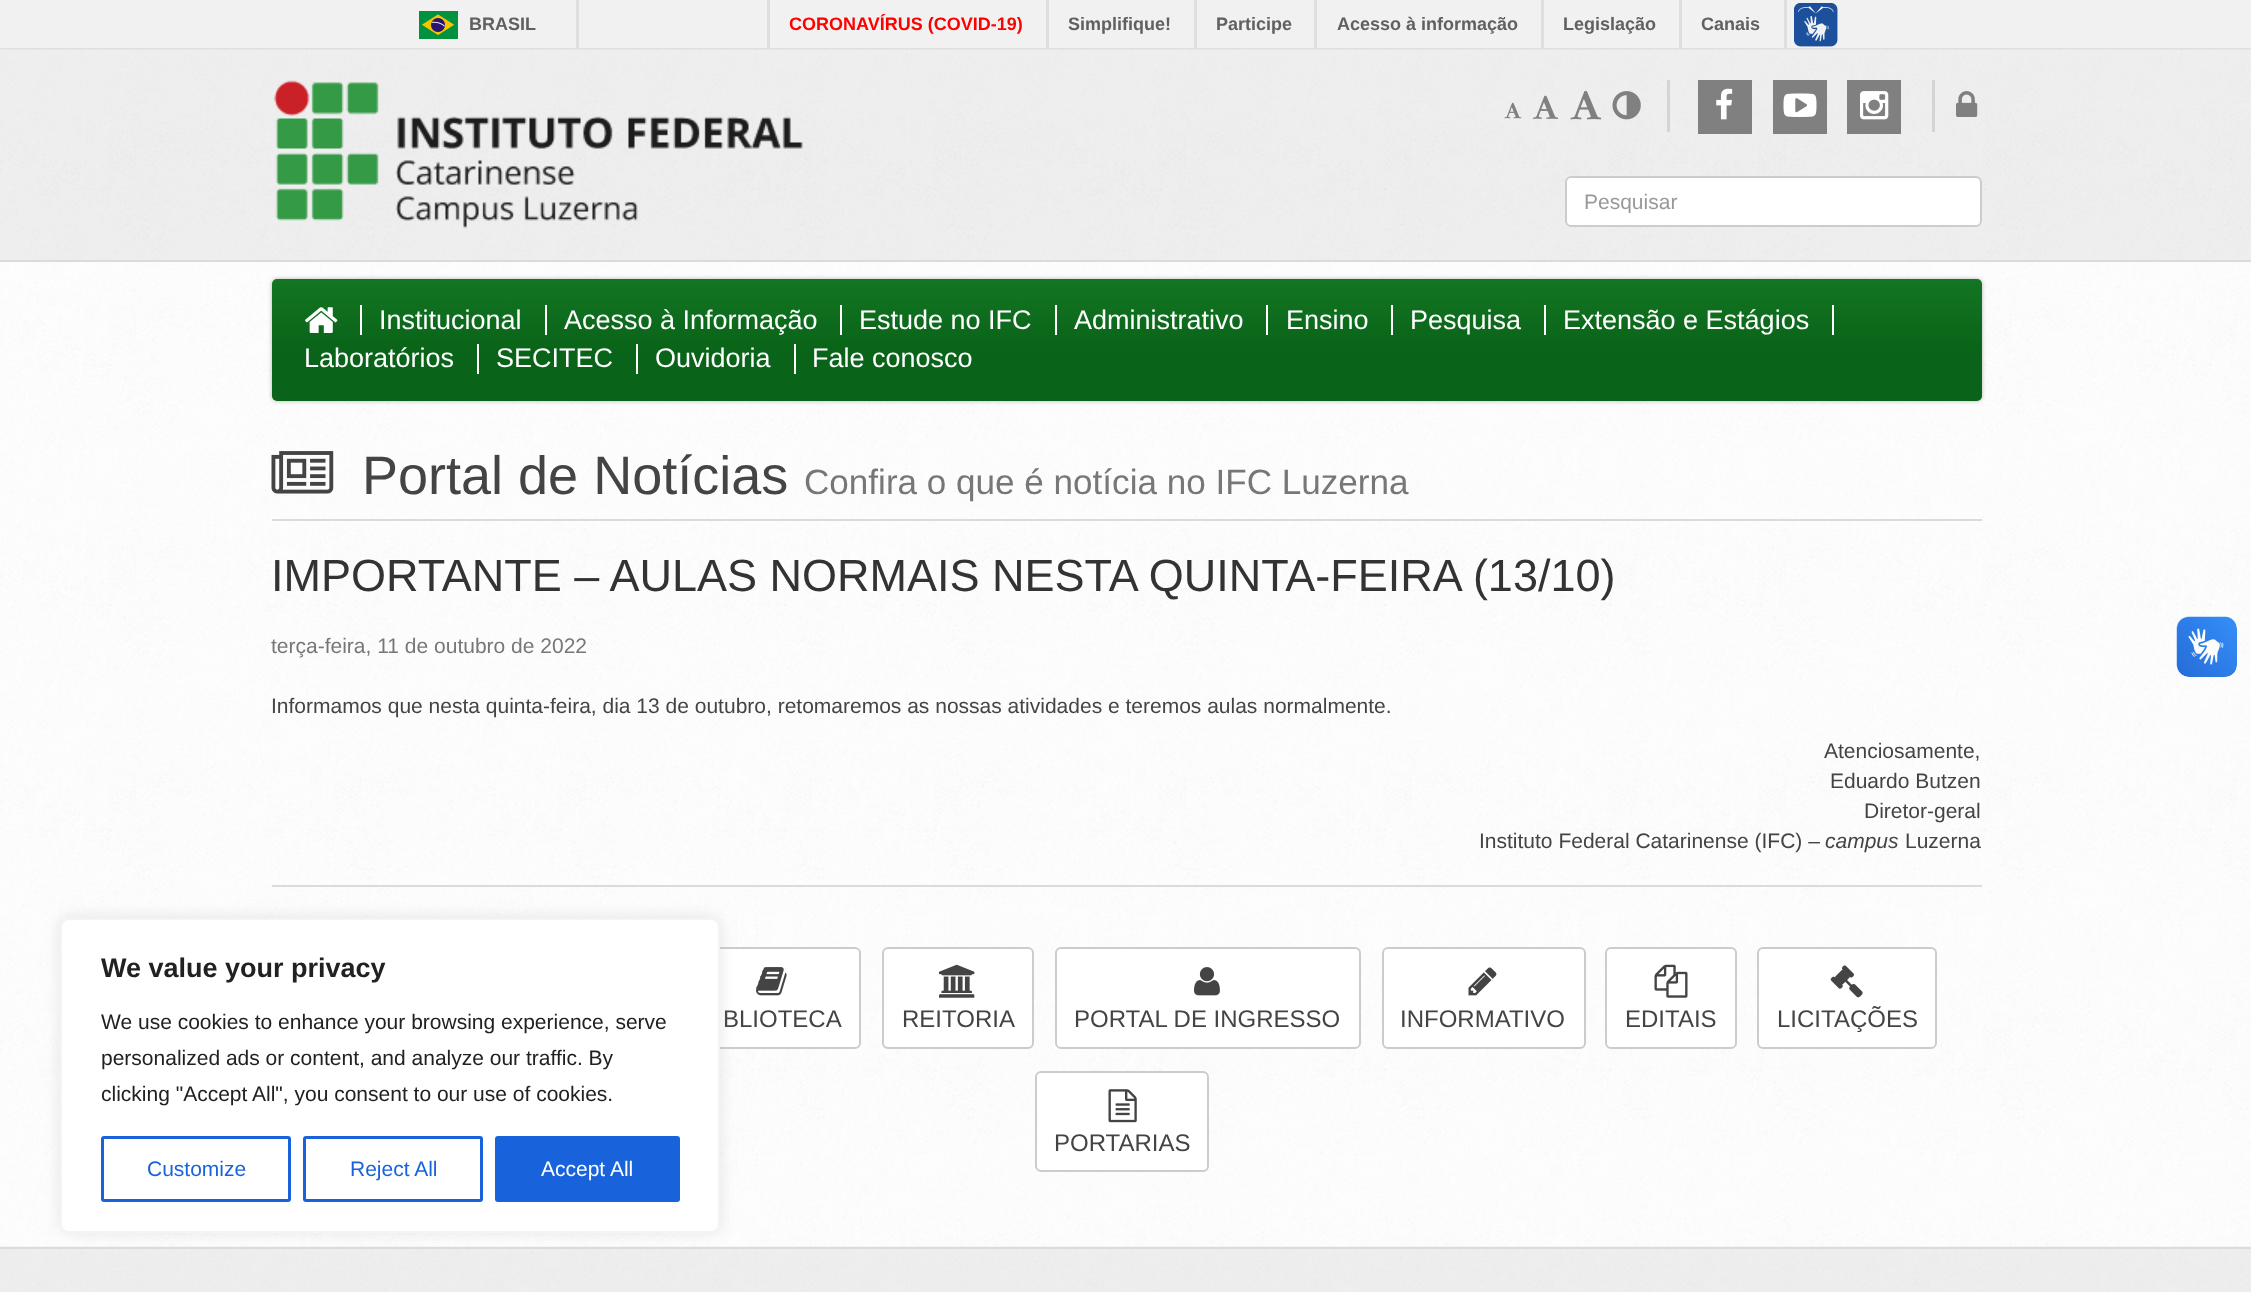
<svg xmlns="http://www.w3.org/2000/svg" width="2251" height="1292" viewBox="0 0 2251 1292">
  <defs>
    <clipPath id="clip1"><rect x="1584" y="189" width="378" height="24"/></clipPath>
    <linearGradient id="g1" gradientUnits="userSpaceOnUse" x1="1127" y1="279" x2="1127" y2="401"><stop offset="0" stop-color="rgb(19,118,35)"/><stop offset="0.6" stop-color="rgb(9,99,24)"/></linearGradient>
  </defs>
  <rect width="100%" height="100%" fill="rgb(255,255,255)"/>
  <image x="0" y="262" width="2251" height="985" href="pic1.png"/>
  <rect x="0" y="0" width="2251" height="48" fill="rgb(241,241,241)"/>
  <rect x="0" y="48" width="2251" height="2" fill="rgb(223,223,223)"/>
  <rect x="576" y="0" width="3" height="48" fill="rgb(223,223,223)"/>
  <image x="419" y="11" width="39" height="28" href="pic2.png"/>
  <text x="469" y="30" font-family="Liberation Sans" font-size="18" font-weight="bold" fill="rgb(96,96,96)">BRASIL</text>
  <rect x="1046" y="0" width="3" height="48" fill="rgb(223,223,223)"/>
  <rect x="767" y="0" width="3" height="48" fill="rgb(223,223,223)"/>
  <text x="789" y="30" font-family="Liberation Sans" font-size="18" font-weight="bold" fill="rgb(255,0,0)">CORONAVÍRUS (COVID-19)</text>
  <rect x="1194" y="0" width="3" height="48" fill="rgb(223,223,223)"/>
  <text x="1068" y="30" font-family="Liberation Sans" font-size="18" font-weight="bold" fill="rgb(96,96,96)">Simplifique!</text>
  <rect x="1314" y="0" width="3" height="48" fill="rgb(223,223,223)"/>
  <text x="1216" y="30" font-family="Liberation Sans" font-size="18" font-weight="bold" fill="rgb(96,96,96)">Participe</text>
  <rect x="1541" y="0" width="3" height="48" fill="rgb(223,223,223)"/>
  <text x="1337" y="30" font-family="Liberation Sans" font-size="18" font-weight="bold" fill="rgb(96,96,96)">Acesso à informação</text>
  <rect x="1679" y="0" width="3" height="48" fill="rgb(223,223,223)"/>
  <text x="1563" y="30" font-family="Liberation Sans" font-size="18" font-weight="bold" fill="rgb(96,96,96)">Legislação</text>
  <rect x="1784" y="0" width="3" height="48" fill="rgb(223,223,223)"/>
  <text x="1701" y="30" font-family="Liberation Sans" font-size="18" font-weight="bold" fill="rgb(96,96,96)">Canais</text>
  <image x="1794" y="3" width="44" height="44" href="pic3.png"/>
  <image x="0" y="49" width="2251" height="211" href="pic4.png"/>
  <rect x="0" y="260" width="2251" height="2" fill="rgb(219,219,219)"/>
  <image x="274" y="80" width="529" height="149" href="pic5.png"/>
  <rect x="1667" y="80" width="3" height="52" fill="rgb(212,212,212)"/>
  <image x="1504" y="102" width="18" height="17" href="pic6.png"/>
  <image x="1533" y="95" width="26" height="24" href="pic7.png"/>
  <image x="1570" y="91" width="32" height="29" href="pic8.png"/>
  <image x="1612" y="91" width="29" height="29" href="pic9.png"/>
  <rect x="1698" y="80" width="54" height="54" fill="rgb(128,128,128)"/>
  <image x="1716" y="88" width="17" height="32" href="pic10.png"/>
  <rect x="1773" y="80" width="54" height="54" fill="rgb(128,128,128)"/>
  <image x="1783" y="93" width="34" height="24" href="pic11.png"/>
  <rect x="1847" y="80" width="54" height="54" fill="rgb(128,128,128)"/>
  <image x="1860" y="91" width="29" height="29" href="pic12.png"/>
  <rect x="1932" y="80" width="3" height="52" fill="rgb(212,212,212)"/>
  <image x="1956" y="91" width="22" height="26" href="pic13.png"/>
  <rect x="1565" y="176" width="417" height="51" rx="6" fill="rgb(255,255,255)"/>
  <path d="M1570 178H1976C1978 178 1980 181 1980 183V182C1980 179 1978 177 1975 177H1571C1568 177 1566 179 1566 182V183C1566 181 1568 178 1570 178Z" fill="rgb(236,236,236)"/>
  <rect x="1566" y="177" width="415" height="49" rx="5" fill="none" stroke="rgb(204,204,204)" stroke-width="2"/>
  <g clip-path="url(#clip1)">
    <text x="1584" y="209" font-family="Liberation Sans" font-size="21" fill="rgb(153,153,153)">Pesquisar</text>
  </g>
  <rect x="272" y="279" width="1710" height="122" rx="5" fill="rgb(182,182,182)" filter="blur(2px)"/>
  <rect x="272" y="279" width="1710" height="122" rx="5" fill="url(#g1)"/>
  <rect x="360" y="305" width="2" height="30" fill="rgb(255,255,255)"/>
  <image x="305" y="307" width="33" height="26" href="pic14.png"/>
  <text x="379" y="329" font-family="Liberation Sans" font-size="27" fill="rgb(255,255,255)">Institucional</text>
  <rect x="545" y="305" width="2" height="30" fill="rgb(255,255,255)"/>
  <text x="564" y="329" font-family="Liberation Sans" font-size="27" fill="rgb(255,255,255)">Acesso à Informação</text>
  <rect x="840" y="305" width="2" height="30" fill="rgb(255,255,255)"/>
  <text x="859" y="329" font-family="Liberation Sans" font-size="27" fill="rgb(255,255,255)">Estude no IFC</text>
  <rect x="1055" y="305" width="2" height="30" fill="rgb(255,255,255)"/>
  <text x="1074" y="329" font-family="Liberation Sans" font-size="27" fill="rgb(255,255,255)">Administrativo</text>
  <rect x="1266" y="305" width="2" height="30" fill="rgb(255,255,255)"/>
  <text x="1286" y="329" font-family="Liberation Sans" font-size="27" fill="rgb(255,255,255)">Ensino</text>
  <rect x="1391" y="305" width="2" height="30" fill="rgb(255,255,255)"/>
  <text x="1410" y="329" font-family="Liberation Sans" font-size="27" fill="rgb(255,255,255)">Pesquisa</text>
  <rect x="1544" y="305" width="2" height="30" fill="rgb(255,255,255)"/>
  <text x="1563" y="329" font-family="Liberation Sans" font-size="27" fill="rgb(255,255,255)">Extensão e Estágios</text>
  <rect x="1832" y="305" width="2" height="30" fill="rgb(255,255,255)"/>
  <text x="304" y="367" font-family="Liberation Sans" font-size="27" fill="rgb(255,255,255)">Laboratórios</text>
  <rect x="477" y="344" width="2" height="30" fill="rgb(255,255,255)"/>
  <text x="496" y="367" font-family="Liberation Sans" font-size="27" fill="rgb(255,255,255)">SECITEC</text>
  <rect x="636" y="344" width="2" height="30" fill="rgb(255,255,255)"/>
  <text x="655" y="367" font-family="Liberation Sans" font-size="27" fill="rgb(255,255,255)">Ouvidoria</text>
  <rect x="794" y="344" width="2" height="30" fill="rgb(255,255,255)"/>
  <text x="812" y="367" font-family="Liberation Sans" font-size="27" fill="rgb(255,255,255)">Fale conosco</text>
  <rect x="272" y="519" width="1710" height="2" fill="rgb(219,219,219)"/>
  <image x="271" y="451" width="63" height="43" href="pic15.png"/>
  <text x="362" y="494" font-family="Liberation Sans" font-size="54" fill="rgb(68,68,68)">Portal de Notícias</text>
  <text x="804" y="494" font-family="Liberation Sans" font-size="35.1" fill="rgb(119,119,119)">Confira o que é notícia no IFC Luzerna</text>
  <text x="271" y="591" font-family="Liberation Sans" font-size="45" fill="rgb(51,51,51)">IMPORTANTE – AULAS NORMAIS NESTA QUINTA-FEIRA (13/10)</text>
  <text x="271" y="653" font-family="Liberation Sans" font-size="21" fill="rgb(119,119,119)">terça-feira, 11 de outubro de 2022</text>
  <g font-family="Liberation Sans" font-size="21" fill="rgb(68,68,68)">
    <text x="271" y="713">Informamos que nesta quinta-feira, dia 13 de outubro, retomaremos as nossas atividades e teremos aulas normalmente.</text>
    <text x="1824" y="758">Atenciosamente,</text>
    <text x="1830" y="788">Eduardo Butzen</text>
    <text x="1864" y="818">Diretor-geral</text>
    <text x="1479" y="848">Instituto Federal Catarinense (IFC) –</text>
  </g>
  <text x="1825" y="848" font-family="Liberation Sans" font-size="21" font-style="italic" fill="rgb(68,68,68)">campus</text>
  <text x="1905" y="848" font-family="Liberation Sans" font-size="21" fill="rgb(68,68,68)">Luzerna</text>
  <rect x="272" y="885" width="1710" height="2" fill="rgb(219,219,219)"/>
  <rect x="682" y="948" width="178" height="100" rx="5" fill="rgb(255,255,255)" stroke="rgb(204,204,204)" stroke-width="2"/>
  <image x="756" y="967" width="31" height="29" href="pic16.png"/>
  <text x="723" y="1027" font-family="Liberation Sans" font-size="24" fill="rgb(68,68,68)">BLIOTECA</text>
  <rect x="883" y="948" width="150" height="100" rx="5" fill="rgb(255,255,255)" stroke="rgb(204,204,204)" stroke-width="2"/>
  <image x="939" y="964" width="36" height="34" href="pic17.png"/>
  <text x="902" y="1027" font-family="Liberation Sans" font-size="24" fill="rgb(68,68,68)">REITORIA</text>
  <rect x="1056" y="948" width="304" height="100" rx="5" fill="rgb(255,255,255)" stroke="rgb(204,204,204)" stroke-width="2"/>
  <image x="1194" y="967" width="26" height="29" href="pic18.png"/>
  <text x="1074" y="1027" font-family="Liberation Sans" font-size="24" fill="rgb(68,68,68)">PORTAL DE INGRESSO</text>
  <rect x="1383" y="948" width="202" height="100" rx="5" fill="rgb(255,255,255)" stroke="rgb(204,204,204)" stroke-width="2"/>
  <image x="1468" y="967" width="29" height="29" href="pic19.png"/>
  <text x="1400" y="1027" font-family="Liberation Sans" font-size="24" fill="rgb(68,68,68)">INFORMATIVO</text>
  <rect x="1606" y="948" width="130" height="100" rx="5" fill="rgb(255,255,255)" stroke="rgb(204,204,204)" stroke-width="2"/>
  <image x="1654" y="964" width="34" height="34" href="pic20.png"/>
  <text x="1625" y="1027" font-family="Liberation Sans" font-size="24" fill="rgb(68,68,68)">EDITAIS</text>
  <rect x="1758" y="948" width="178" height="100" rx="5" fill="rgb(255,255,255)" stroke="rgb(204,204,204)" stroke-width="2"/>
  <image x="1830" y="965" width="33" height="33" href="pic21.png"/>
  <text x="1777" y="1027" font-family="Liberation Sans" font-size="24" fill="rgb(68,68,68)">LICITAÇÕES</text>
  <rect x="1036" y="1072" width="172" height="99" rx="5" fill="rgb(255,255,255)" stroke="rgb(204,204,204)" stroke-width="2"/>
  <image x="1108" y="1089" width="29" height="34" href="pic22.png"/>
  <text x="1054" y="1151" font-family="Liberation Sans" font-size="24" fill="rgb(68,68,68)">PORTARIAS</text>
  <image x="0" y="1246" width="2251" height="46" href="pic23.png"/>
  <rect x="0" y="1247" width="2251" height="2" fill="rgb(219,219,219)"/>
  <image x="2176" y="616" width="61" height="61" href="pic24.png"/>
  <image x="2177" y="617" width="60" height="60" href="pic25.png"/>
  <rect x="60" y="917" width="660" height="315" rx="9" fill="rgba(172,171,171,0.3)" filter="blur(7.5px)"/>
  <rect x="61" y="919" width="658" height="313" rx="8" fill="rgb(255,255,255)" stroke="rgb(244,244,244)" stroke-width="2"/>
  <text x="101" y="977" font-family="Liberation Sans" font-size="27" font-weight="bold" fill="rgb(33,33,33)">We value your privacy</text>
  <g font-family="Liberation Sans" font-size="21" fill="rgb(33,33,33)">
    <text>
      <tspan x="101" y="1029">We use cookies to enhance your browsing experience, serve</tspan>
      <tspan x="101" y="1065">personalized ads or content, and analyze our traffic. By</tspan>
      <tspan x="101" y="1101">clicking "Accept All", you consent to our use of cookies.</tspan>
    </text>
  </g>
  <rect x="102.5" y="1137.5" width="187" height="63" rx="1.5" fill="none" stroke="rgb(24,99,220)" stroke-width="3"/>
  <text x="147" y="1176" font-family="Liberation Sans" font-size="21" fill="rgb(24,99,220)">Customize</text>
  <rect x="304.5" y="1137.5" width="177" height="63" rx="1.5" fill="none" stroke="rgb(24,99,220)" stroke-width="3"/>
  <text x="350" y="1176" font-family="Liberation Sans" font-size="21" fill="rgb(24,99,220)">Reject All</text>
  <rect x="496.5" y="1137.5" width="182" height="63" rx="1.5" fill="rgb(24,99,220)" stroke="rgb(24,99,220)" stroke-width="3"/>
  <text x="541" y="1176" font-family="Liberation Sans" font-size="21" fill="rgb(255,255,255)">Accept All</text>
</svg>
